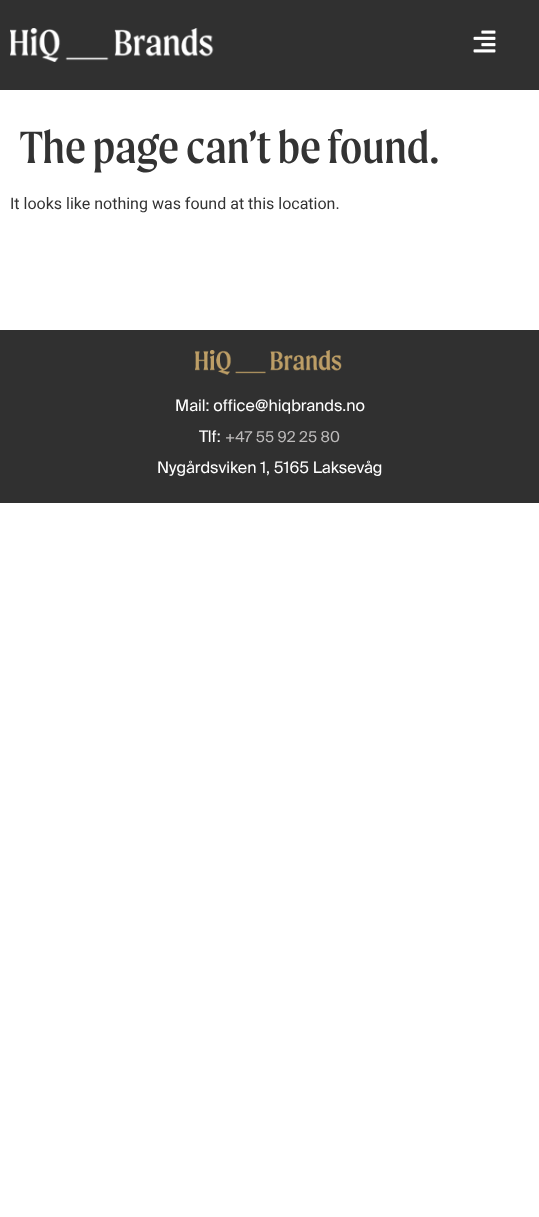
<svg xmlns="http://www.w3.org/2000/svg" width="539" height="1217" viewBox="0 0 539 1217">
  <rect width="100%" height="100%" fill="rgb(255,255,255)"/>
  <rect x="0" y="0" width="539" height="90" fill="rgb(48,48,48)"/>
  <image x="10" y="28" width="204" height="34" href="pic1.png"/>
  <image x="473" y="30" width="23" height="23" href="pic2.png"/>
  <text x="20" y="163" font-family="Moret" font-size="48" fill="rgb(51,51,51)">The page can’t be found.</text>
  <text x="10" y="209" font-family="Roboto" font-size="16" fill="rgb(51,51,51)">It looks like nothing was found at this location.</text>
  <rect x="0" y="330" width="539" height="173" fill="rgb(48,48,48)"/>
  <image x="195" y="350" width="147" height="25" href="pic3.png"/>
  <g font-family="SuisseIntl" font-size="16" fill="rgb(255,255,255)">
    <text x="175" y="411">Mail: office@hiqbrands.no</text>
    <text x="199" y="442">Tlf:</text>
  </g>
  <text x="225" y="442" font-family="SuisseIntl" font-size="15" fill="rgb(189,187,187)">+47 55 92 25 80</text>
  <text x="157" y="473" font-family="SuisseIntl" font-size="16" fill="rgb(255,255,255)">Nygårdsviken 1, 5165 Laksevåg</text>
</svg>
